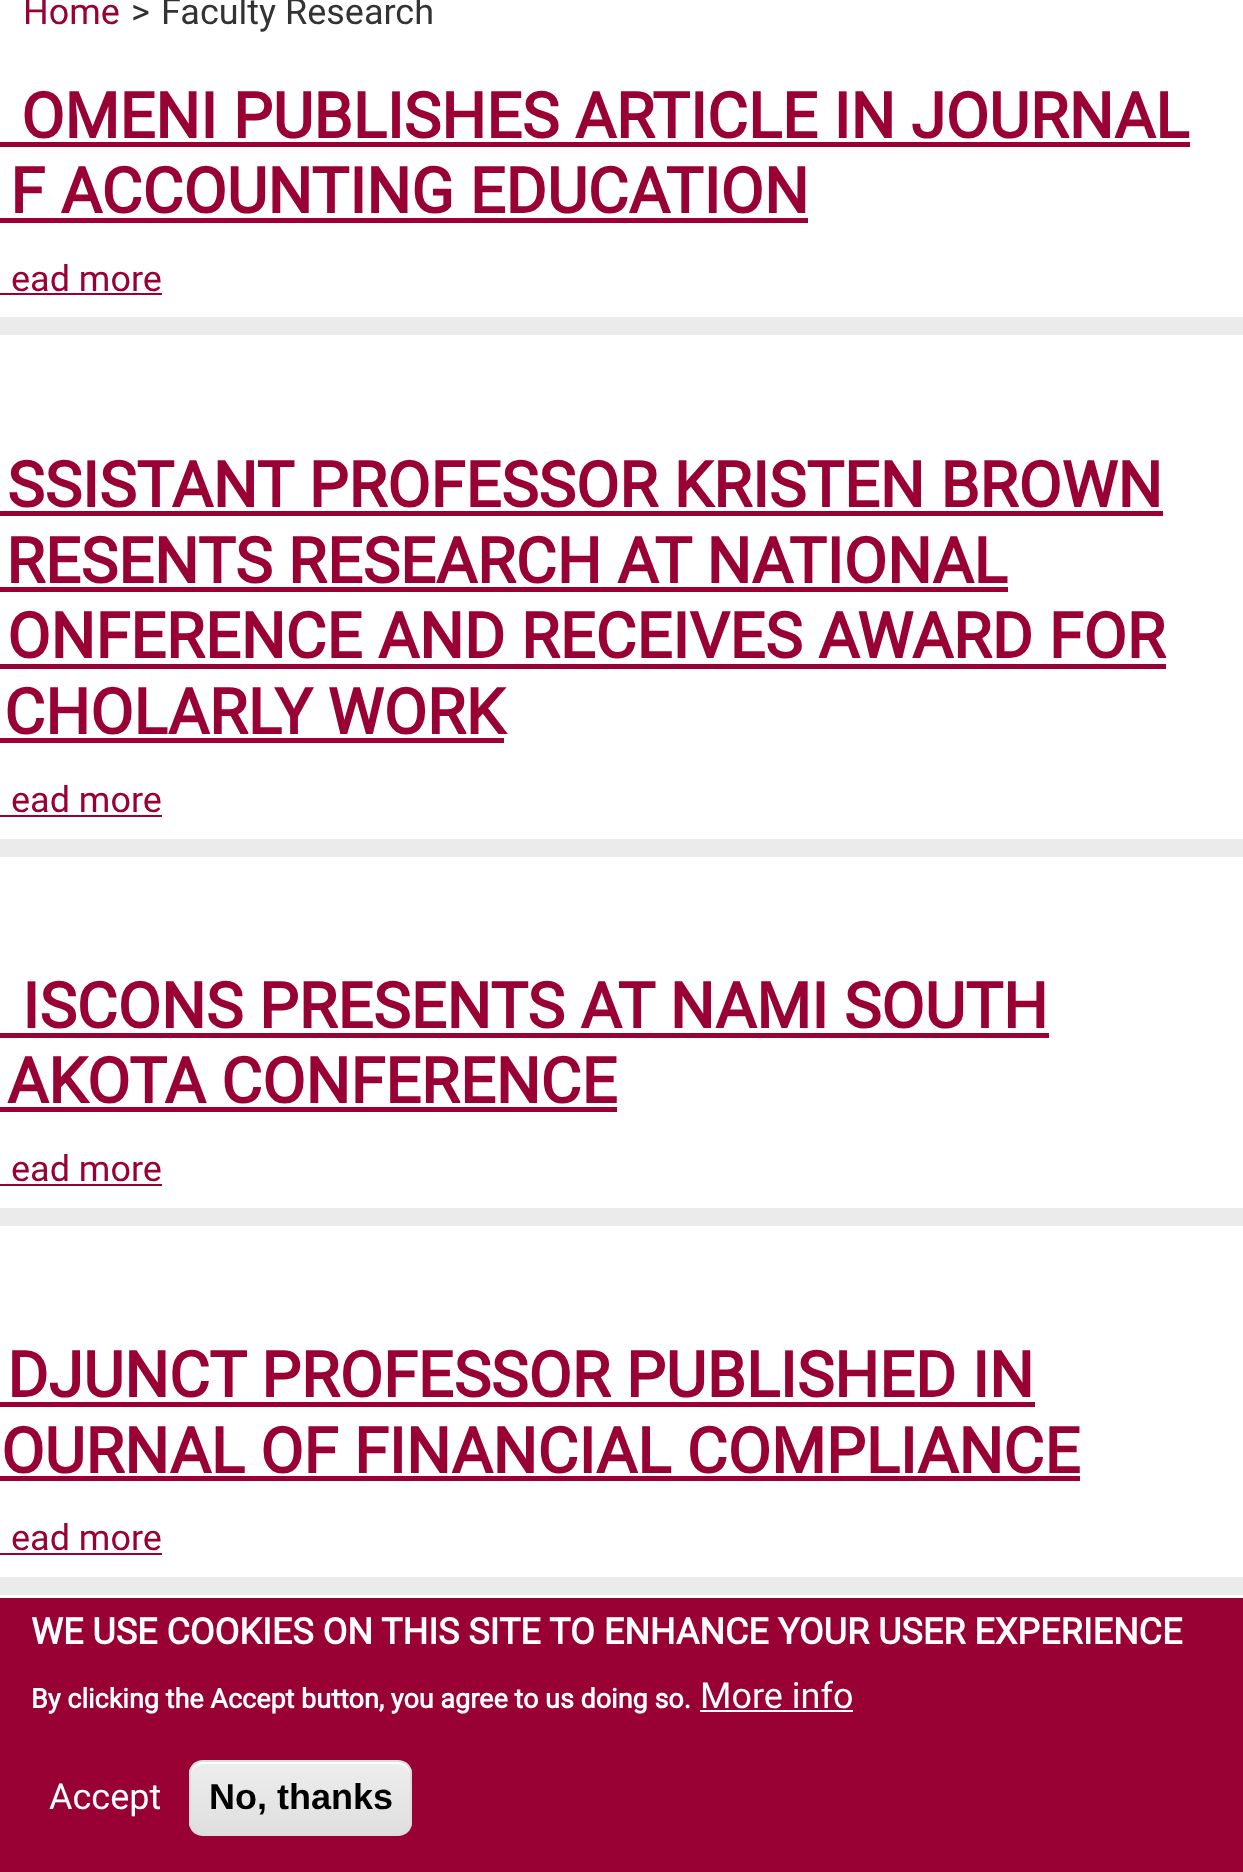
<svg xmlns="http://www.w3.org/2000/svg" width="1243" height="1872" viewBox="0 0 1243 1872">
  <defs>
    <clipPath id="clip1"><rect x="189" y="1760" width="223" height="76" rx="14"/></clipPath>
    <linearGradient id="g1" gradientUnits="userSpaceOnUse" x1="300" y1="1762" x2="300" y2="1834"><stop offset="0.05" stop-color="rgb(237,237,237)"/><stop offset="1" stop-color="rgb(223,223,223)"/></linearGradient>
  </defs>
  <rect width="100%" height="100%" fill="rgb(255,255,255)"/>
  <text x="23" y="24" font-family="Roboto" font-size="36" fill="rgb(153,0,51)">Home</text>
  <g font-family="Roboto" font-size="36" fill="rgb(51,51,51)">
    <text x="131" y="24">&gt;</text>
    <text x="161" y="24">Faculty Research</text>
  </g>
  <rect x="0" y="317" width="1243" height="18" fill="rgb(235,235,235)"/>
  <text x="21" y="138" font-family="Roboto" font-size="63" font-weight="bold" fill="rgb(153,0,51)">OMENI PUBLISHES ARTICLE IN JOURNAL</text>
  <rect x="0" y="142" width="1190" height="5" fill="rgb(153,0,51)"/>
  <text x="10" y="213" font-family="Roboto" font-size="63" font-weight="bold" fill="rgb(153,0,51)">F ACCOUNTING EDUCATION</text>
  <rect x="0" y="218" width="808" height="5" fill="rgb(153,0,51)"/>
  <text x="11" y="291" font-family="Roboto" font-size="36" fill="rgb(153,0,51)">ead more</text>
  <rect x="0" y="293" width="162" height="2" fill="rgb(153,0,51)"/>
  <rect x="0" y="839" width="1243" height="18" fill="rgb(235,235,235)"/>
  <text x="7" y="507" font-family="Roboto" font-size="63" font-weight="bold" fill="rgb(153,0,51)">SSISTANT PROFESSOR KRISTEN BROWN</text>
  <rect x="0" y="511" width="1163" height="5" fill="rgb(153,0,51)"/>
  <text x="6" y="583" font-family="Roboto" font-size="63" font-weight="bold" fill="rgb(153,0,51)">RESENTS RESEARCH AT NATIONAL</text>
  <rect x="0" y="587" width="1008" height="5" fill="rgb(153,0,51)"/>
  <text x="7" y="658" font-family="Roboto" font-size="63" font-weight="bold" fill="rgb(153,0,51)">ONFERENCE AND RECEIVES AWARD FOR</text>
  <rect x="0" y="664" width="1166" height="5" fill="rgb(153,0,51)"/>
  <text x="4" y="734" font-family="Roboto" font-size="63" font-weight="bold" fill="rgb(153,0,51)">CHOLARLY WORK</text>
  <rect x="0" y="738" width="504" height="5" fill="rgb(153,0,51)"/>
  <text x="11" y="812" font-family="Roboto" font-size="36" fill="rgb(153,0,51)">ead more</text>
  <rect x="0" y="815" width="162" height="2" fill="rgb(153,0,51)"/>
  <rect x="0" y="1208" width="1243" height="18" fill="rgb(235,235,235)"/>
  <text x="22" y="1028" font-family="Roboto" font-size="63" font-weight="bold" fill="rgb(153,0,51)">ISCONS PRESENTS AT NAMI SOUTH</text>
  <rect x="0" y="1033" width="1049" height="5" fill="rgb(153,0,51)"/>
  <text x="7" y="1103" font-family="Roboto" font-size="63" font-weight="bold" fill="rgb(153,0,51)">AKOTA CONFERENCE</text>
  <rect x="0" y="1107" width="617" height="5" fill="rgb(153,0,51)"/>
  <text x="11" y="1181" font-family="Roboto" font-size="36" fill="rgb(153,0,51)">ead more</text>
  <rect x="0" y="1184" width="162" height="2" fill="rgb(153,0,51)"/>
  <rect x="0" y="1577" width="1243" height="18" fill="rgb(235,235,235)"/>
  <text x="7" y="1397" font-family="Roboto" font-size="63" font-weight="bold" fill="rgb(153,0,51)">DJUNCT PROFESSOR PUBLISHED IN</text>
  <rect x="0" y="1402" width="1035" height="5" fill="rgb(153,0,51)"/>
  <text x="1" y="1473" font-family="Roboto" font-size="63" font-weight="bold" fill="rgb(153,0,51)">OURNAL OF FINANCIAL COMPLIANCE</text>
  <rect x="0" y="1476" width="1080" height="5" fill="rgb(153,0,51)"/>
  <text x="11" y="1550" font-family="Roboto" font-size="36" fill="rgb(153,0,51)">ead more</text>
  <rect x="0" y="1553" width="162" height="2" fill="rgb(153,0,51)"/>
  <rect x="0" y="1598" width="1243" height="274" fill="rgb(153,0,51)"/>
  <text x="31" y="1644" font-family="Roboto" font-size="36" font-weight="bold" fill="rgb(255,255,255)">WE USE COOKIES ON THIS SITE TO ENHANCE YOUR USER EXPERIENCE</text>
  <text x="31" y="1708" font-family="Roboto" font-size="27" font-weight="bold" fill="rgb(255,255,255)">By clicking the Accept button, you agree to us doing so.</text>
  <text x="700" y="1708" font-family="Roboto" font-size="36" fill="rgb(255,255,255)">More info</text>
  <rect x="700" y="1710" width="153" height="2" fill="rgb(255,255,255)"/>
  <text x="49" y="1809" font-family="Roboto" font-size="36" fill="rgb(255,255,255)">Accept</text>
  <g clip-path="url(#clip1)">
    <rect x="189" y="1762" width="223" height="72" fill="url(#g1)"/>
  </g>
  <path d="M202 1764H398C404 1764 410 1769 410 1775V1773C410 1767 405 1762 399 1762H202C196 1762 191 1767 191 1773V1775C191 1769 196 1764 202 1764Z" fill="rgb(255,255,255)"/>
  <rect x="190" y="1761" width="221" height="74" rx="13" fill="none" stroke="rgb(220,220,220)" stroke-width="2"/>
  <text x="209" y="1809" font-family="Liberation Sans" font-size="36" font-weight="bold" fill="rgb(0,0,0)">No, thanks</text>
</svg>
